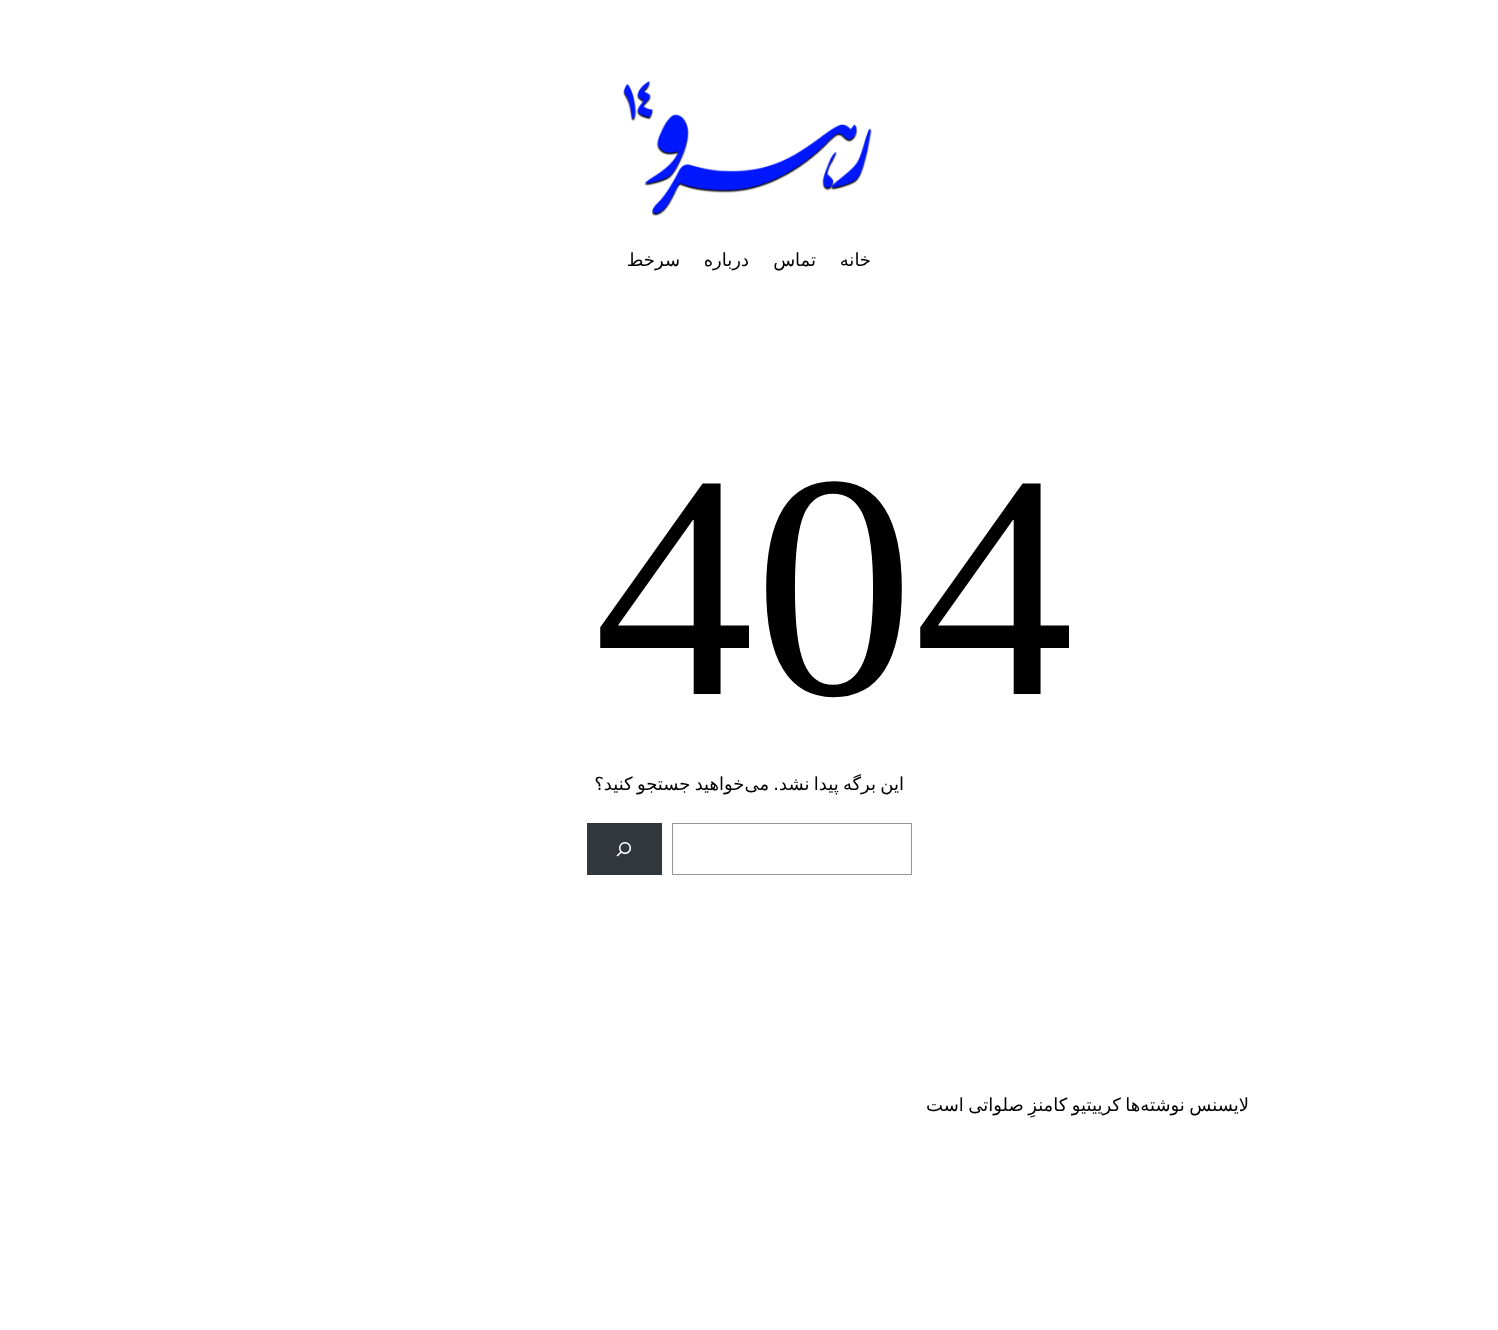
<svg xmlns="http://www.w3.org/2000/svg" width="1498" height="1330" viewBox="0 0 1498 1330">
  <rect width="100%" height="100%" fill="rgb(255,255,255)"/>
  <image x="623" y="81" width="249" height="135" href="pic1.png"/>
  <g font-family="DejaVu Sans" font-size="18" direction="rtl" fill="rgb(0,0,0)">
    <text x="871" y="266">خانه</text>
    <text x="816" y="266">تماس</text>
    <text x="749" y="266">درباره</text>
    <text x="680" y="266">سرخط</text>
  </g>
  <text x="594" y="694" font-family="Liberation Serif" font-size="320" fill="rgb(0,0,0)">404</text>
  <text x="904" y="790" word-spacing="-1.5" font-family="DejaVu Sans" font-size="18" direction="rtl" fill="rgb(0,0,0)">این برگه پیدا نشد. می‌خواهید جستجو کنید؟</text>
  <rect x="672.5" y="823.5" width="239" height="51" fill="none" stroke="rgb(148,148,148)"/>
  <rect x="587" y="823" width="75" height="52" fill="rgb(50,55,60)"/>
  <image x="616" y="842" width="16" height="15" href="pic2.png"/>
  <text x="1249" y="1111" word-spacing="-1.25" font-family="DejaVu Sans" font-size="18" direction="rtl" fill="rgb(0,0,0)">لایسنس نوشته‌ها کرییتیو کامنزِ صلواتی است</text>
</svg>
